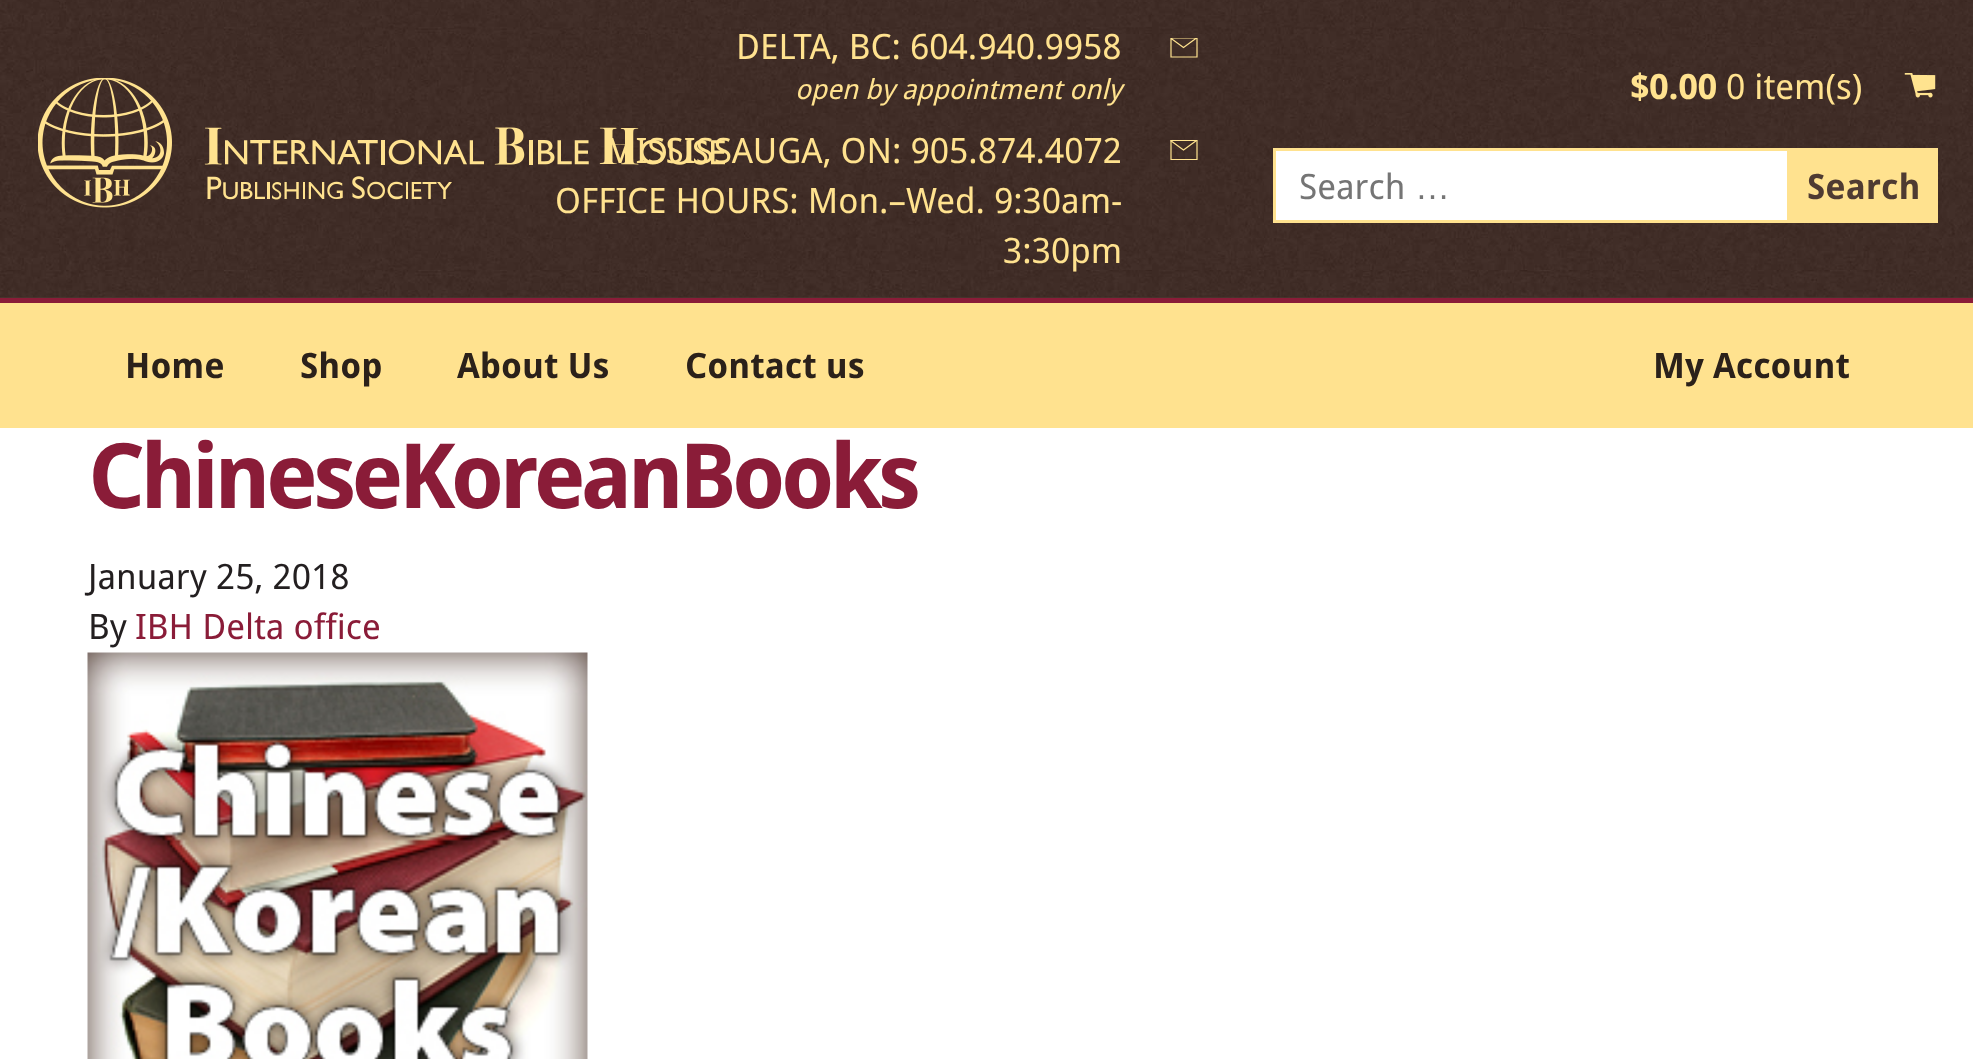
<svg xmlns="http://www.w3.org/2000/svg" width="1973" height="1059" viewBox="0 0 1973 1059">
  <defs>
    <clipPath id="clip1"><rect x="1170" y="38" width="28" height="20"/></clipPath>
    <clipPath id="clip2"><rect x="1170" y="140" width="28" height="20"/></clipPath>
  </defs>
  <rect width="100%" height="100%" fill="rgb(255,255,255)"/>
  <rect x="0" y="297" width="1973" height="1" fill="rgb(79,59,50)"/>
  <image x="0" y="0" width="1973" height="298" href="pic1.png"/>
  <image x="38" y="78" width="687" height="130" href="pic2.png"/>
  <g clip-path="url(#clip1)">
    <path d="M1171 38H1197V57H1171ZM1170.5 38L1183.5 47.5L1196.5 38" fill="none" stroke="rgb(255,227,143)" stroke-width="1.2"/>
  </g>
  <text x="736" y="59" font-family="Droid Sans" font-size="35" fill="rgb(255,226,143)">DELTA, BC: 604.940.9958</text>
  <text x="795" y="99" font-family="Droid Sans" font-size="27.5" font-style="italic" fill="rgb(255,226,143)">open by appointment only</text>
  <g clip-path="url(#clip2)">
    <path d="M1171 140.5H1197V159.5H1171Z" fill="none" stroke="rgb(255,227,143)" stroke-width="1.2"/>
  </g>
  <path d="M1170.5 140.5L1183.5 150L1196.5 140.5" fill="none" stroke="rgb(255,227,143)" stroke-width="1.2"/>
  <g font-family="Droid Sans" font-size="35" fill="rgb(255,226,143)">
    <text x="605" y="163">MISSISSAUGA, ON: 905.874.4072</text>
    <text x="555" y="213">OFFICE HOURS: Mon.–Wed. 9:30am-</text>
    <text x="1003" y="263">3:30pm</text>
  </g>
  <image x="1904" y="73" width="32" height="25" href="pic3.png"/>
  <text x="1630" y="99" font-family="Droid Sans" font-size="35" font-weight="bold" fill="rgb(255,226,143)">$0.00</text>
  <text x="1726" y="99" font-family="Droid Sans" font-size="35" fill="rgb(255,226,143)">0 item(s)</text>
  <rect x="1274.5" y="149.5" width="514" height="72" fill="rgb(255,255,255)" stroke="rgb(255,226,143)" stroke-width="3"/>
  <text x="1299" y="199" font-family="Droid Sans" font-size="35" fill="rgb(117,117,117)">Search</text>
  <text x="1415" y="199" font-family="Liberation Sans" font-size="35" fill="rgb(117,117,117)">…</text>
  <rect x="1790" y="148" width="148" height="75" fill="rgb(255,226,143)"/>
  <text x="1807" y="199" font-family="Droid Sans" font-size="35" font-weight="bold" fill="rgb(79,59,50)">Search</text>
  <rect x="0" y="303" width="1973" height="125" fill="rgb(255,226,143)"/>
  <rect x="0" y="298" width="1973" height="5" fill="rgb(138,28,56)"/>
  <g font-family="Droid Sans" font-size="35" font-weight="bold" fill="rgb(43,33,26)">
    <text x="125" y="378">Home</text>
    <text x="300" y="378">Shop</text>
    <text x="457" y="378">About Us</text>
    <text x="685" y="378">Contact us</text>
    <text x="1653" y="378">My Account</text>
  </g>
  <text x="88" y="508" font-family="Droid Sans" font-size="90" font-weight="bold" letter-spacing="-5" fill="rgb(138,28,56)">ChineseKoreanBooks</text>
  <g font-family="Droid Sans" font-size="35" fill="rgb(35,31,32)">
    <text>
      <tspan x="88" y="589">January 25, 2018</tspan>
      <tspan x="88" y="639">By</tspan>
    </text>
  </g>
  <text x="135" y="639" font-family="Droid Sans" font-size="35" fill="rgb(138,28,56)">IBH Delta office</text>
  <image x="87" y="652" width="501" height="407" href="pic4.png"/>
</svg>
